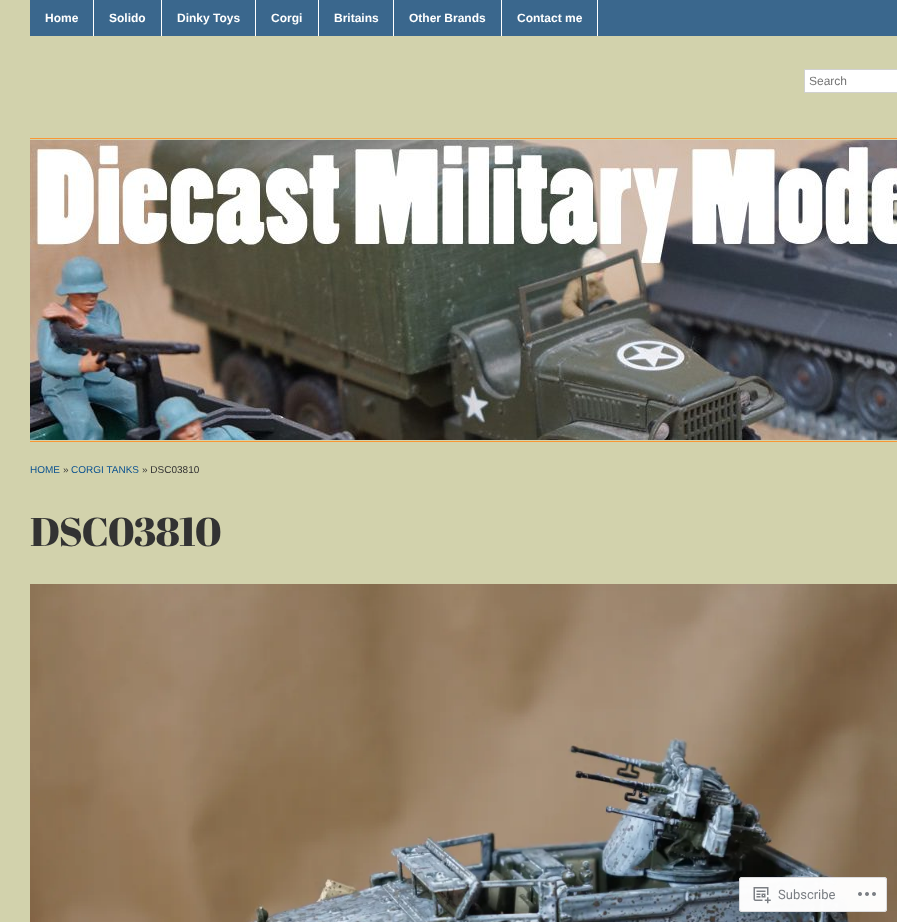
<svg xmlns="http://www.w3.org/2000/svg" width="897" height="922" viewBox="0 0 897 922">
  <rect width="100%" height="100%" fill="rgb(210,210,172)"/>
  <rect x="30" y="0" width="867" height="36" fill="rgb(58,103,141)"/>
  <rect x="93" y="0" width="1" height="36" fill="rgb(255,255,255)"/>
  <text x="45" y="22" font-family="Liberation Sans" font-size="12" font-weight="bold" fill="rgb(255,255,255)">Home</text>
  <rect x="161" y="0" width="1" height="36" fill="rgb(255,255,255)"/>
  <text x="109" y="22" font-family="Liberation Sans" font-size="12" font-weight="bold" fill="rgb(255,255,255)">Solido</text>
  <rect x="255" y="0" width="1" height="36" fill="rgb(255,255,255)"/>
  <text x="177" y="22" font-family="Liberation Sans" font-size="12" font-weight="bold" fill="rgb(255,255,255)">Dinky Toys</text>
  <rect x="318" y="0" width="1" height="36" fill="rgb(255,255,255)"/>
  <text x="271" y="22" font-family="Liberation Sans" font-size="12" font-weight="bold" fill="rgb(255,255,255)">Corgi</text>
  <rect x="393" y="0" width="1" height="36" fill="rgb(255,255,255)"/>
  <text x="334" y="22" font-family="Liberation Sans" font-size="12" font-weight="bold" fill="rgb(255,255,255)">Britains</text>
  <rect x="501" y="0" width="1" height="36" fill="rgb(255,255,255)"/>
  <text x="409" y="22" font-family="Liberation Sans" font-size="12" font-weight="bold" fill="rgb(255,255,255)">Other Brands</text>
  <rect x="597" y="0" width="1" height="36" fill="rgb(255,255,255)"/>
  <text x="517" y="22" font-family="Liberation Sans" font-size="12" font-weight="bold" fill="rgb(255,255,255)">Contact me</text>
  <rect x="804.5" y="69.5" width="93" height="23" fill="rgb(255,255,255)" stroke="rgb(209,209,209)"/>
  <text x="809" y="85" font-family="Arimo" font-size="12" fill="rgb(117,117,117)">Search</text>
  <rect x="30" y="138" width="867" height="1" fill="rgb(249,151,52)"/>
  <rect x="30" y="441" width="867" height="1" fill="rgb(249,151,52)"/>
  <image x="30" y="140" width="867" height="300" href="pic1.png"/>
  <text x="30" y="473" font-family="Liberation Sans" font-size="10" fill="rgb(12,83,144)">HOME</text>
  <text x="63" y="473" font-family="Liberation Sans" font-size="10" fill="rgb(51,51,51)">»</text>
  <text x="71" y="473" font-family="Liberation Sans" font-size="10" fill="rgb(12,83,144)">CORGI TANKS</text>
  <text x="142" y="473" font-family="Liberation Sans" font-size="10" fill="rgb(51,51,51)">» DSC03810</text>
  <text x="30" y="546" font-family="Abril Fatface" font-size="40" letter-spacing="-1" fill="rgb(51,51,51)">DSC03810</text>
  <image x="30" y="584" width="867" height="338" href="pic2.png"/>
  <rect x="739" y="877" width="148" height="35" rx="3" fill="rgba(255,255,255,0.98)"/>
  <rect x="739.5" y="877.5" width="147" height="34" rx="2.5" fill="none" stroke="rgba(220,220,222,0.98)"/>
  <image x="753" y="887" width="18" height="17" href="pic3.png"/>
  <text x="778" y="899" font-family="Roboto" font-size="13" fill="rgb(123,127,132)">Subscribe</text>
  <image x="858" y="892" width="18" height="4" href="pic4.png"/>
</svg>
